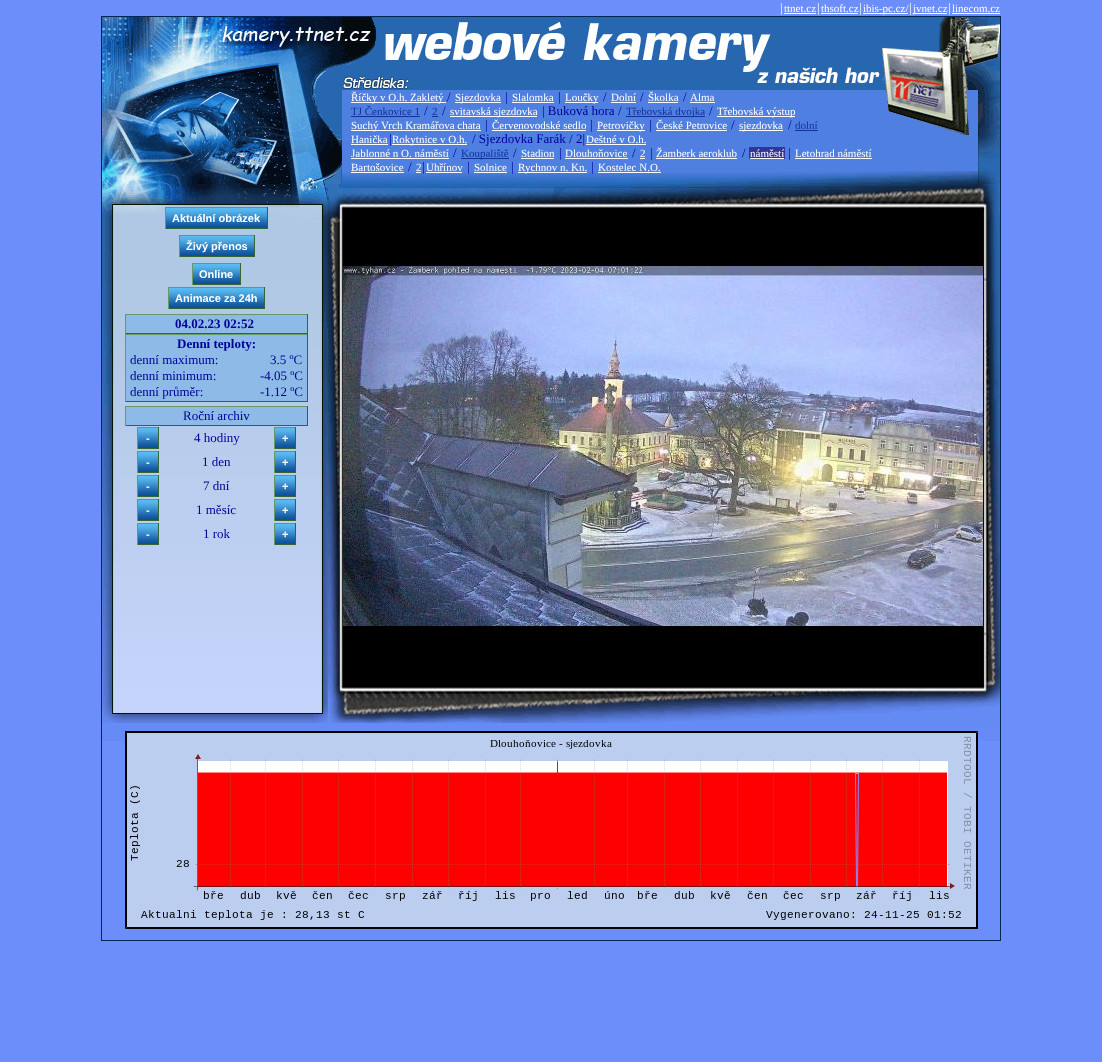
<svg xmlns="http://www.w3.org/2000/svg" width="1102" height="1062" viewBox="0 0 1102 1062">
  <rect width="100%" height="100%" fill="rgb(107,142,251)"/>
  <text x="780" y="12" font-family="Liberation Serif" font-size="13" fill="rgb(255,255,255)">|</text>
  <text x="784" y="12" font-family="Liberation Serif" font-size="11" fill="rgb(255,255,255)">ttnet.cz</text>
  <rect x="784" y="13" width="32" height="1" fill="rgb(255,255,255)"/>
  <text x="817" y="12" font-family="Liberation Serif" font-size="13" fill="rgb(255,255,255)">|</text>
  <text x="821" y="12" font-family="Liberation Serif" font-size="11" fill="rgb(255,255,255)">thsoft.cz</text>
  <rect x="821" y="13" width="37" height="1" fill="rgb(255,255,255)"/>
  <text x="859" y="12" font-family="Liberation Serif" font-size="13" fill="rgb(255,255,255)">|</text>
  <rect x="863" y="13" width="45" height="1" fill="rgb(255,255,255)"/>
  <text x="863" y="12" font-family="Liberation Serif" font-size="11" fill="rgb(255,255,255)">ibis-pc.cz/</text>
  <text x="909" y="12" font-family="Liberation Serif" font-size="13" fill="rgb(255,255,255)">|</text>
  <rect x="913" y="13" width="34" height="1" fill="rgb(255,255,255)"/>
  <text x="913" y="12" font-family="Liberation Serif" font-size="11" fill="rgb(255,255,255)">jvnet.cz</text>
  <text x="948" y="12" font-family="Liberation Serif" font-size="13" fill="rgb(255,255,255)">|</text>
  <text x="952" y="12" font-family="Liberation Serif" font-size="11" fill="rgb(255,255,255)">linecom.cz</text>
  <rect x="952" y="13" width="48" height="1" fill="rgb(255,255,255)"/>
  <rect x="101.5" y="16.5" width="899" height="924" fill="none" stroke="rgb(4,38,82)"/>
  <image x="102" y="17" width="898" height="167" href="pic1.png"/>
  <rect x="351" y="102" width="95" height="1" fill="rgb(255,255,255)"/>
  <text x="351" y="101" font-family="Liberation Serif" font-size="11" fill="rgb(255,255,255)">Říčky v O.h. Zakletý</text>
  <text x="447" y="101" font-family="Liberation Serif" font-size="13" fill="rgb(0,0,153)">/</text>
  <rect x="455" y="102" width="46" height="1" fill="rgb(255,255,255)"/>
  <text x="455" y="101" font-family="Liberation Serif" font-size="11" fill="rgb(255,255,255)">Sjezdovka</text>
  <text x="505" y="101" font-family="Liberation Serif" font-size="13" fill="rgb(0,0,153)">|</text>
  <text x="512" y="101" font-family="Liberation Serif" font-size="11" fill="rgb(255,255,255)">Slalomka</text>
  <rect x="512" y="102" width="42" height="1" fill="rgb(255,255,255)"/>
  <text x="558" y="101" font-family="Liberation Serif" font-size="13" fill="rgb(0,0,153)">|</text>
  <rect x="565" y="102" width="33" height="1" fill="rgb(255,255,255)"/>
  <text x="565" y="101" font-family="Liberation Serif" font-size="11" fill="rgb(255,255,255)">Loučky</text>
  <text x="603" y="101" font-family="Liberation Serif" font-size="13" fill="rgb(0,0,153)">/</text>
  <text x="611" y="101" font-family="Liberation Serif" font-size="11" fill="rgb(255,255,255)">Dolní</text>
  <rect x="611" y="102" width="25" height="1" fill="rgb(255,255,255)"/>
  <text x="640" y="101" font-family="Liberation Serif" font-size="13" fill="rgb(0,0,153)">/</text>
  <text x="648" y="101" font-family="Liberation Serif" font-size="11" fill="rgb(255,255,255)">Školka</text>
  <rect x="648" y="102" width="30" height="1" fill="rgb(255,255,255)"/>
  <text x="683" y="101" font-family="Liberation Serif" font-size="13" fill="rgb(0,0,153)">/</text>
  <text x="690" y="101" font-family="Liberation Serif" font-size="11" fill="rgb(255,255,255)">Alma</text>
  <rect x="690" y="102" width="25" height="1" fill="rgb(255,255,255)"/>
  <text x="351" y="115" font-family="Liberation Serif" font-size="11" fill="rgb(17,51,153)">TJ Čenkovice 1</text>
  <rect x="351" y="116" width="69" height="1" fill="rgb(17,51,153)"/>
  <text x="424" y="115" font-family="Liberation Serif" font-size="13" fill="rgb(0,0,153)">/</text>
  <text x="432" y="115" font-family="Liberation Serif" font-size="11" fill="rgb(17,51,153)">2</text>
  <rect x="432" y="116" width="6" height="1" fill="rgb(17,51,153)"/>
  <text x="442" y="115" font-family="Liberation Serif" font-size="13" fill="rgb(0,0,153)">/</text>
  <rect x="450" y="116" width="87" height="1" fill="rgb(255,255,255)"/>
  <text x="450" y="115" font-family="Liberation Serif" font-size="11" fill="rgb(255,255,255)">svitavská sjezdovka</text>
  <text x="542" y="115" font-family="Liberation Serif" font-size="13" fill="rgb(0,0,153)">| Buková hora /</text>
  <rect x="626" y="116" width="79" height="1" fill="rgb(17,51,153)"/>
  <text x="626" y="115" font-family="Liberation Serif" font-size="11" fill="rgb(17,51,153)">Třebovská dvojka</text>
  <text x="709" y="115" font-family="Liberation Serif" font-size="13" fill="rgb(0,0,153)">/</text>
  <rect x="717" y="116" width="78" height="1" fill="rgb(255,255,255)"/>
  <text x="717" y="115" font-family="Liberation Serif" font-size="11" fill="rgb(255,255,255)">Třebovská výstup</text>
  <rect x="351" y="130" width="130" height="1" fill="rgb(255,255,255)"/>
  <text x="351" y="129" font-family="Liberation Serif" font-size="11" fill="rgb(255,255,255)">Suchý Vrch Kramářova chata</text>
  <text x="485" y="129" font-family="Liberation Serif" font-size="13" fill="rgb(0,0,153)">|</text>
  <text x="492" y="129" font-family="Liberation Serif" font-size="11" fill="rgb(255,255,255)">Červenovodské sedlo</text>
  <rect x="492" y="130" width="94" height="1" fill="rgb(255,255,255)"/>
  <text x="590" y="129" font-family="Liberation Serif" font-size="13" fill="rgb(0,0,153)">|</text>
  <rect x="597" y="130" width="48" height="1" fill="rgb(255,255,255)"/>
  <text x="597" y="129" font-family="Liberation Serif" font-size="11" fill="rgb(255,255,255)">Petrovičky</text>
  <text x="649" y="129" font-family="Liberation Serif" font-size="13" fill="rgb(0,0,153)">|</text>
  <text x="656" y="129" font-family="Liberation Serif" font-size="11" fill="rgb(255,255,255)">České Petrovice</text>
  <rect x="656" y="130" width="71" height="1" fill="rgb(255,255,255)"/>
  <text x="731" y="129" font-family="Liberation Serif" font-size="13" fill="rgb(0,0,153)">/</text>
  <rect x="739" y="130" width="44" height="1" fill="rgb(255,255,255)"/>
  <text x="739" y="129" font-family="Liberation Serif" font-size="11" fill="rgb(255,255,255)">sjezdovka</text>
  <text x="788" y="129" font-family="Liberation Serif" font-size="13" fill="rgb(0,0,153)">/</text>
  <text x="795" y="129" font-family="Liberation Serif" font-size="11" fill="rgb(17,51,153)">dolní</text>
  <rect x="795" y="130" width="23" height="1" fill="rgb(17,51,153)"/>
  <text x="351" y="143" font-family="Liberation Serif" font-size="11" fill="rgb(255,255,255)">Hanička</text>
  <rect x="351" y="144" width="37" height="1" fill="rgb(255,255,255)"/>
  <text x="389" y="143" font-family="Liberation Serif" font-size="13" fill="rgb(0,0,153)">|</text>
  <rect x="392" y="144" width="75" height="1" fill="rgb(255,255,255)"/>
  <text x="392" y="143" font-family="Liberation Serif" font-size="11" fill="rgb(255,255,255)">Rokytnice v O.h.</text>
  <text x="472" y="143" font-family="Liberation Serif" font-size="13" fill="rgb(0,0,153)">/ Sjezdovka Farák / 2|</text>
  <text x="586" y="143" font-family="Liberation Serif" font-size="11" fill="rgb(255,255,255)">Deštné v O.h.</text>
  <rect x="586" y="144" width="60" height="1" fill="rgb(255,255,255)"/>
  <text x="351" y="157" font-family="Liberation Serif" font-size="11" fill="rgb(255,255,255)">Jablonné n O. náměstí</text>
  <rect x="351" y="158" width="98" height="1" fill="rgb(255,255,255)"/>
  <text x="453" y="157" font-family="Liberation Serif" font-size="13" fill="rgb(0,0,153)">/</text>
  <rect x="461" y="158" width="48" height="1" fill="rgb(17,51,153)"/>
  <text x="461" y="157" font-family="Liberation Serif" font-size="11" fill="rgb(17,51,153)">Koupaliště</text>
  <text x="513" y="157" font-family="Liberation Serif" font-size="13" fill="rgb(0,0,153)">/</text>
  <text x="521" y="157" font-family="Liberation Serif" font-size="11" fill="rgb(255,255,255)">Stadion</text>
  <rect x="521" y="158" width="33" height="1" fill="rgb(255,255,255)"/>
  <text x="559" y="157" font-family="Liberation Serif" font-size="13" fill="rgb(0,0,153)">|</text>
  <text x="565" y="157" font-family="Liberation Serif" font-size="11" fill="rgb(255,255,255)">Dlouhoňovice</text>
  <rect x="565" y="158" width="63" height="1" fill="rgb(255,255,255)"/>
  <text x="632" y="157" font-family="Liberation Serif" font-size="13" fill="rgb(0,0,153)">/</text>
  <text x="640" y="157" font-family="Liberation Serif" font-size="11" fill="rgb(255,255,255)">2</text>
  <rect x="640" y="158" width="5" height="1" fill="rgb(255,255,255)"/>
  <text x="650" y="157" font-family="Liberation Serif" font-size="13" fill="rgb(0,0,153)">|</text>
  <text x="656" y="157" font-family="Liberation Serif" font-size="11" fill="rgb(255,255,255)">Žamberk aeroklub</text>
  <rect x="656" y="158" width="81" height="1" fill="rgb(255,255,255)"/>
  <text x="742" y="157" font-family="Liberation Serif" font-size="13" fill="rgb(0,0,153)">/</text>
  <rect x="749" y="147" width="36" height="12" fill="rgb(51,51,153)"/>
  <text x="750" y="157" font-family="Liberation Serif" font-size="11" fill="rgb(255,255,255)">náměstí</text>
  <rect x="750" y="158" width="34" height="1" fill="rgb(255,255,255)"/>
  <text x="788" y="157" font-family="Liberation Serif" font-size="13" fill="rgb(0,0,153)">|</text>
  <text x="795" y="157" font-family="Liberation Serif" font-size="11" fill="rgb(255,255,255)">Letohrad náměstí</text>
  <rect x="795" y="158" width="77" height="1" fill="rgb(255,255,255)"/>
  <text x="351" y="171" font-family="Liberation Serif" font-size="11" fill="rgb(255,255,255)">Bartošovice</text>
  <rect x="351" y="172" width="53" height="1" fill="rgb(255,255,255)"/>
  <text x="408" y="171" font-family="Liberation Serif" font-size="13" fill="rgb(0,0,153)">/</text>
  <text x="416" y="171" font-family="Liberation Serif" font-size="11" fill="rgb(255,255,255)">2</text>
  <rect x="416" y="172" width="5" height="1" fill="rgb(255,255,255)"/>
  <text x="422" y="171" font-family="Liberation Serif" font-size="13" fill="rgb(0,0,153)">|</text>
  <text x="426" y="171" font-family="Liberation Serif" font-size="11" fill="rgb(255,255,255)">Uhřínov</text>
  <rect x="426" y="172" width="36" height="1" fill="rgb(255,255,255)"/>
  <text x="467" y="171" font-family="Liberation Serif" font-size="13" fill="rgb(0,0,153)">|</text>
  <text x="474" y="171" font-family="Liberation Serif" font-size="11" fill="rgb(255,255,255)">Solnice</text>
  <rect x="474" y="172" width="33" height="1" fill="rgb(255,255,255)"/>
  <text x="511" y="171" font-family="Liberation Serif" font-size="13" fill="rgb(0,0,153)">|</text>
  <rect x="518" y="172" width="69" height="1" fill="rgb(255,255,255)"/>
  <text x="518" y="171" font-family="Liberation Serif" font-size="11" fill="rgb(255,255,255)">Rychnov n. Kn.</text>
  <text x="591" y="171" font-family="Liberation Serif" font-size="13" fill="rgb(0,0,153)">|</text>
  <text x="598" y="171" font-family="Liberation Serif" font-size="11" fill="rgb(255,255,255)">Kostelec N.O.</text>
  <rect x="598" y="172" width="63" height="1" fill="rgb(255,255,255)"/>
  <image x="102" y="184" width="226" height="539" href="pic2.png"/>
  <image x="166" y="208" width="101" height="20" href="pic3.png"/>
  <rect x="165" y="207" width="103" height="1" fill="rgb(102,153,102)"/>
  <rect x="267" y="207" width="1" height="22" fill="rgb(51,102,51)"/>
  <rect x="165" y="228" width="103" height="1" fill="rgb(51,102,51)"/>
  <rect x="165" y="207" width="1" height="22" fill="rgb(102,153,102)"/>
  <text x="172" y="222" font-family="Liberation Sans" font-size="11" font-weight="bold" fill="rgb(255,255,255)">Aktuální obrázek</text>
  <image x="180" y="236" width="74" height="20" href="pic4.png"/>
  <rect x="179" y="235" width="76" height="1" fill="rgb(102,153,102)"/>
  <rect x="254" y="235" width="1" height="22" fill="rgb(51,102,51)"/>
  <rect x="179" y="256" width="76" height="1" fill="rgb(51,102,51)"/>
  <rect x="179" y="235" width="1" height="22" fill="rgb(102,153,102)"/>
  <text x="186" y="250" font-family="Liberation Sans" font-size="11" font-weight="bold" fill="rgb(255,255,255)">Živý přenos</text>
  <image x="193" y="264" width="47" height="20" href="pic5.png"/>
  <rect x="192" y="263" width="49" height="1" fill="rgb(102,153,102)"/>
  <rect x="240" y="263" width="1" height="22" fill="rgb(51,102,51)"/>
  <rect x="192" y="284" width="49" height="1" fill="rgb(51,102,51)"/>
  <rect x="192" y="263" width="1" height="22" fill="rgb(102,153,102)"/>
  <text x="199" y="278" font-family="Liberation Sans" font-size="11" font-weight="bold" fill="rgb(255,255,255)">Online</text>
  <image x="169" y="288" width="95" height="20" href="pic6.png"/>
  <rect x="168" y="287" width="97" height="1" fill="rgb(102,153,102)"/>
  <rect x="264" y="287" width="1" height="22" fill="rgb(51,102,51)"/>
  <rect x="168" y="308" width="97" height="1" fill="rgb(51,102,51)"/>
  <rect x="168" y="287" width="1" height="22" fill="rgb(102,153,102)"/>
  <text x="175" y="302" font-family="Liberation Sans" font-size="11" font-weight="bold" fill="rgb(255,255,255)">Animace za 24h</text>
  <rect x="126" y="315" width="181" height="18" fill="rgb(141,186,231)"/>
  <rect x="125" y="314" width="183" height="1" fill="rgb(102,153,102)"/>
  <rect x="307" y="314" width="1" height="20" fill="rgb(51,102,51)"/>
  <rect x="125" y="333" width="183" height="1" fill="rgb(51,102,51)"/>
  <rect x="125" y="314" width="1" height="20" fill="rgb(102,153,102)"/>
  <text x="175" y="328" font-family="Liberation Serif" font-size="13" font-weight="bold" fill="rgb(0,0,153)">04.02.23 02:52</text>
  <rect x="126" y="335" width="181" height="66" fill="rgb(141,186,231)"/>
  <rect x="125" y="334" width="183" height="1" fill="rgb(102,153,102)"/>
  <rect x="307" y="334" width="1" height="68" fill="rgb(51,102,51)"/>
  <rect x="125" y="401" width="183" height="1" fill="rgb(51,102,51)"/>
  <rect x="125" y="334" width="1" height="68" fill="rgb(102,153,102)"/>
  <text x="177" y="348" font-family="Liberation Serif" font-size="13" font-weight="bold" fill="rgb(0,0,153)">Denní teploty:</text>
  <g font-family="Liberation Serif" font-size="13" fill="rgb(0,0,153)">
    <text x="130" y="364">denní maximum:</text>
    <text x="270" y="364">3.5 ºC</text>
    <text x="130" y="380">denní minimum:</text>
    <text x="260" y="380">-4.05 ºC</text>
    <text x="130" y="396">denní průměr:</text>
    <text x="260" y="396">-1.12 ºC</text>
  </g>
  <rect x="126" y="407" width="181" height="18" fill="rgb(141,186,231)"/>
  <rect x="125" y="406" width="183" height="1" fill="rgb(102,153,102)"/>
  <rect x="307" y="406" width="1" height="20" fill="rgb(51,102,51)"/>
  <rect x="125" y="425" width="183" height="1" fill="rgb(51,102,51)"/>
  <rect x="125" y="406" width="1" height="20" fill="rgb(102,153,102)"/>
  <text x="183" y="420" font-family="Liberation Serif" font-size="13" fill="rgb(0,0,153)">Roční archiv</text>
  <image x="138" y="428" width="20" height="20" href="pic7.png"/>
  <rect x="137" y="427" width="22" height="1" fill="rgb(102,153,102)"/>
  <rect x="158" y="427" width="1" height="22" fill="rgb(51,102,51)"/>
  <rect x="137" y="448" width="22" height="1" fill="rgb(51,102,51)"/>
  <rect x="137" y="427" width="1" height="22" fill="rgb(102,153,102)"/>
  <text x="146" y="442" font-family="Liberation Sans" font-size="11" font-weight="bold" fill="rgb(255,255,255)">-</text>
  <text x="194" y="442" font-family="Liberation Serif" font-size="13" fill="rgb(0,0,153)">4 hodiny</text>
  <image x="275" y="428" width="20" height="20" href="pic7.png"/>
  <rect x="274" y="427" width="22" height="1" fill="rgb(102,153,102)"/>
  <rect x="295" y="427" width="1" height="22" fill="rgb(51,102,51)"/>
  <rect x="274" y="448" width="22" height="1" fill="rgb(51,102,51)"/>
  <rect x="274" y="427" width="1" height="22" fill="rgb(102,153,102)"/>
  <text x="282" y="442" font-family="Liberation Sans" font-size="11" font-weight="bold" fill="rgb(255,255,255)">+</text>
  <image x="138" y="452" width="20" height="20" href="pic7.png"/>
  <rect x="137" y="451" width="22" height="1" fill="rgb(102,153,102)"/>
  <rect x="158" y="451" width="1" height="22" fill="rgb(51,102,51)"/>
  <rect x="137" y="472" width="22" height="1" fill="rgb(51,102,51)"/>
  <rect x="137" y="451" width="1" height="22" fill="rgb(102,153,102)"/>
  <text x="146" y="466" font-family="Liberation Sans" font-size="11" font-weight="bold" fill="rgb(255,255,255)">-</text>
  <text x="202" y="466" font-family="Liberation Serif" font-size="13" fill="rgb(0,0,153)">1 den</text>
  <image x="275" y="452" width="20" height="20" href="pic7.png"/>
  <rect x="274" y="451" width="22" height="1" fill="rgb(102,153,102)"/>
  <rect x="295" y="451" width="1" height="22" fill="rgb(51,102,51)"/>
  <rect x="274" y="472" width="22" height="1" fill="rgb(51,102,51)"/>
  <rect x="274" y="451" width="1" height="22" fill="rgb(102,153,102)"/>
  <text x="282" y="466" font-family="Liberation Sans" font-size="11" font-weight="bold" fill="rgb(255,255,255)">+</text>
  <image x="138" y="476" width="20" height="20" href="pic7.png"/>
  <rect x="137" y="475" width="22" height="1" fill="rgb(102,153,102)"/>
  <rect x="158" y="475" width="1" height="22" fill="rgb(51,102,51)"/>
  <rect x="137" y="496" width="22" height="1" fill="rgb(51,102,51)"/>
  <rect x="137" y="475" width="1" height="22" fill="rgb(102,153,102)"/>
  <text x="146" y="490" font-family="Liberation Sans" font-size="11" font-weight="bold" fill="rgb(255,255,255)">-</text>
  <text x="203" y="490" font-family="Liberation Serif" font-size="13" fill="rgb(0,0,153)">7 dní</text>
  <image x="275" y="476" width="20" height="20" href="pic7.png"/>
  <rect x="274" y="475" width="22" height="1" fill="rgb(102,153,102)"/>
  <rect x="295" y="475" width="1" height="22" fill="rgb(51,102,51)"/>
  <rect x="274" y="496" width="22" height="1" fill="rgb(51,102,51)"/>
  <rect x="274" y="475" width="1" height="22" fill="rgb(102,153,102)"/>
  <text x="282" y="490" font-family="Liberation Sans" font-size="11" font-weight="bold" fill="rgb(255,255,255)">+</text>
  <image x="138" y="500" width="20" height="20" href="pic7.png"/>
  <rect x="137" y="499" width="22" height="1" fill="rgb(102,153,102)"/>
  <rect x="158" y="499" width="1" height="22" fill="rgb(51,102,51)"/>
  <rect x="137" y="520" width="22" height="1" fill="rgb(51,102,51)"/>
  <rect x="137" y="499" width="1" height="22" fill="rgb(102,153,102)"/>
  <text x="146" y="514" font-family="Liberation Sans" font-size="11" font-weight="bold" fill="rgb(255,255,255)">-</text>
  <text x="196" y="514" font-family="Liberation Serif" font-size="13" fill="rgb(0,0,153)">1 měsíc</text>
  <image x="275" y="500" width="20" height="20" href="pic7.png"/>
  <rect x="274" y="499" width="22" height="1" fill="rgb(102,153,102)"/>
  <rect x="295" y="499" width="1" height="22" fill="rgb(51,102,51)"/>
  <rect x="274" y="520" width="22" height="1" fill="rgb(51,102,51)"/>
  <rect x="274" y="499" width="1" height="22" fill="rgb(102,153,102)"/>
  <text x="282" y="514" font-family="Liberation Sans" font-size="11" font-weight="bold" fill="rgb(255,255,255)">+</text>
  <image x="138" y="524" width="20" height="20" href="pic7.png"/>
  <rect x="137" y="523" width="22" height="1" fill="rgb(102,153,102)"/>
  <rect x="158" y="523" width="1" height="22" fill="rgb(51,102,51)"/>
  <rect x="137" y="544" width="22" height="1" fill="rgb(51,102,51)"/>
  <rect x="137" y="523" width="1" height="22" fill="rgb(102,153,102)"/>
  <text x="146" y="538" font-family="Liberation Sans" font-size="11" font-weight="bold" fill="rgb(255,255,255)">-</text>
  <text x="203" y="538" font-family="Liberation Serif" font-size="13" fill="rgb(0,0,153)">1 rok</text>
  <image x="275" y="524" width="20" height="20" href="pic7.png"/>
  <rect x="274" y="523" width="22" height="1" fill="rgb(102,153,102)"/>
  <rect x="295" y="523" width="1" height="22" fill="rgb(51,102,51)"/>
  <rect x="274" y="544" width="22" height="1" fill="rgb(51,102,51)"/>
  <rect x="274" y="523" width="1" height="22" fill="rgb(102,153,102)"/>
  <text x="282" y="538" font-family="Liberation Sans" font-size="11" font-weight="bold" fill="rgb(255,255,255)">+</text>
  <image x="328" y="184" width="672" height="539" href="pic8.png"/>
  <image x="343" y="266" width="640" height="360" href="pic9.png"/>
  <rect x="102" y="723" width="898" height="18" fill="rgb(102,139,246)"/>
  <image x="125" y="731" width="853" height="198" href="pic10.png"/>
</svg>
